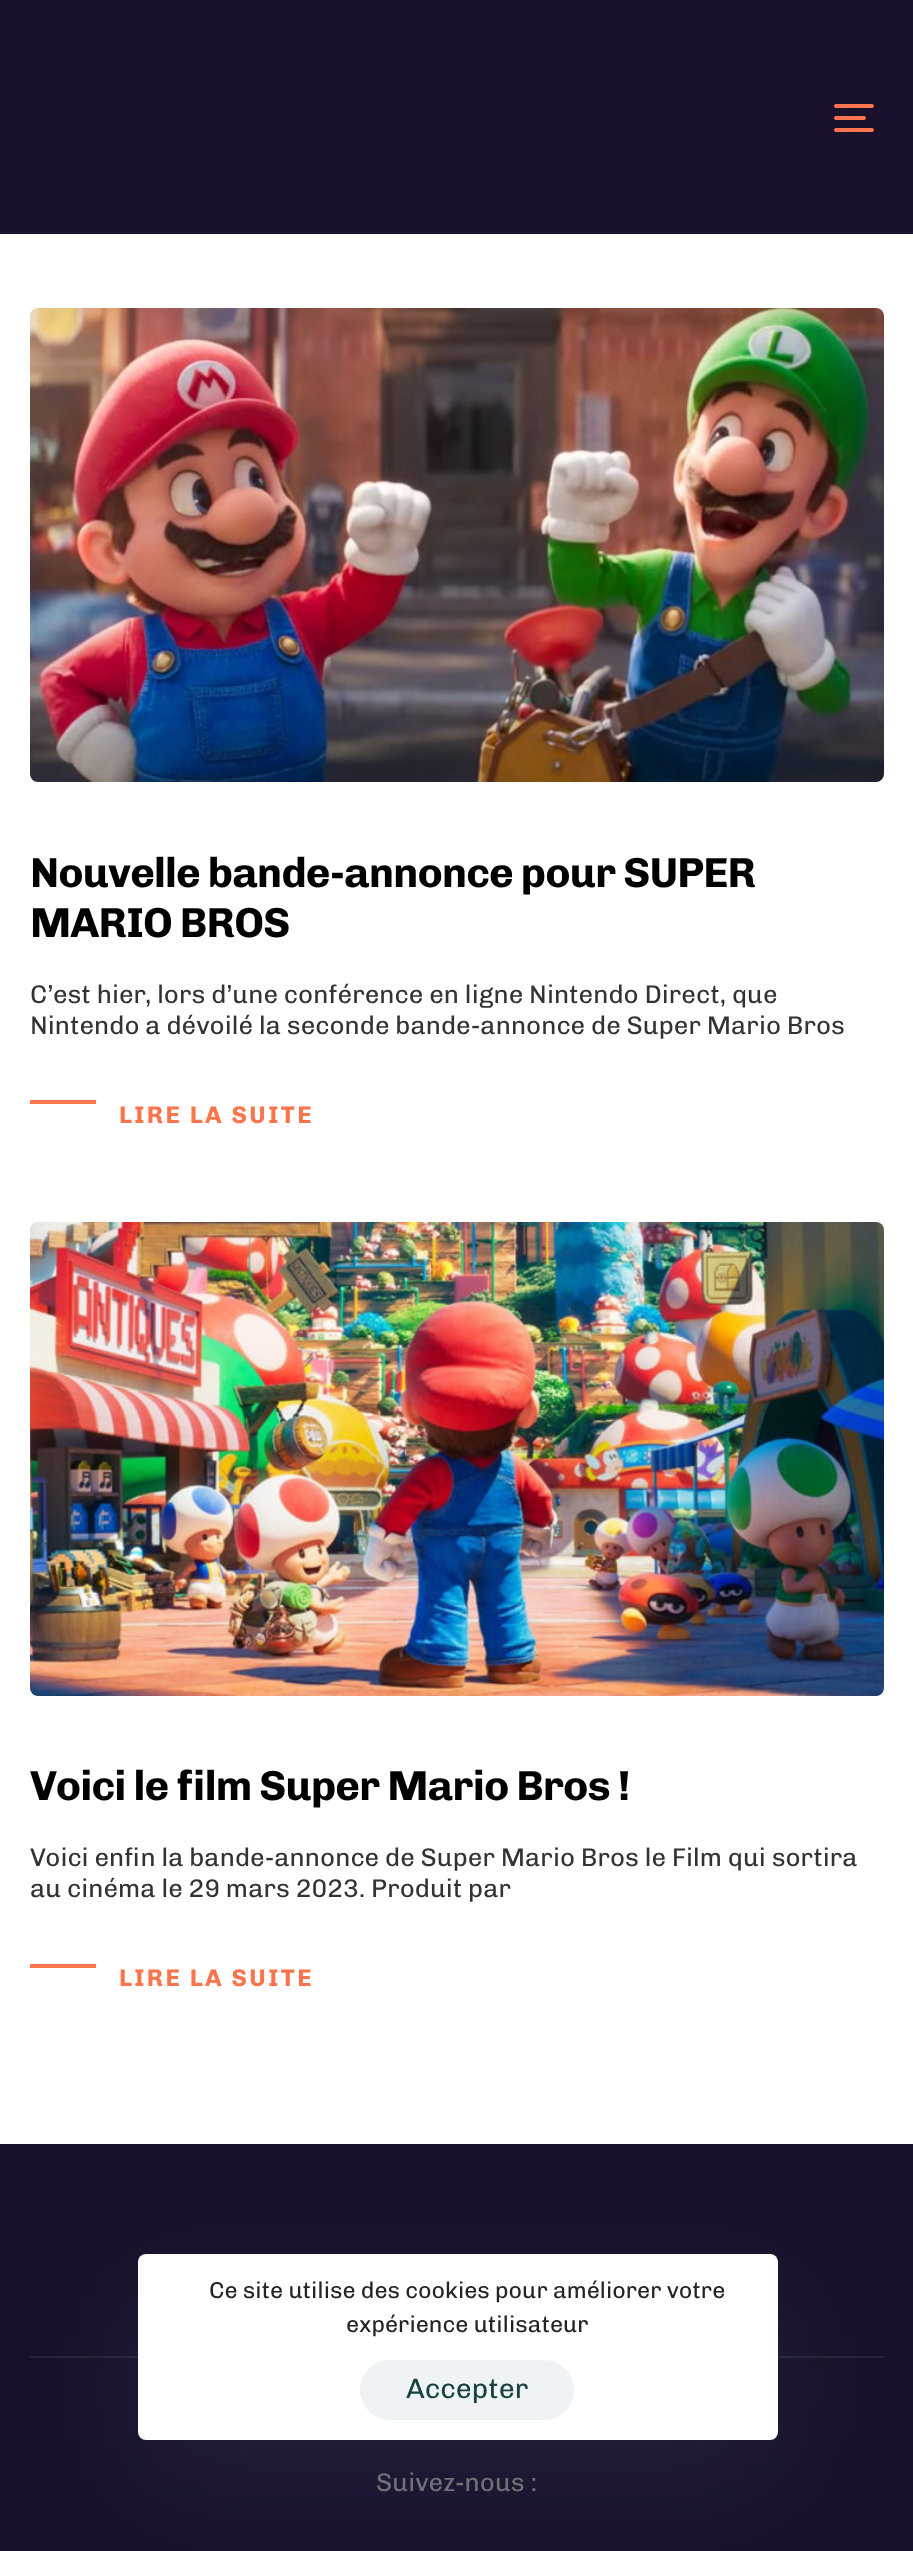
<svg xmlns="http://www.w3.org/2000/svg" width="913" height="2551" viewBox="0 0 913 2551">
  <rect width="100%" height="100%" fill="rgb(255,255,255)"/>
  <rect x="0" y="0" width="913" height="234" fill="rgb(26,17,44)"/>
  <rect x="834" y="104" width="40" height="4" rx="2" fill="rgb(250,117,75)"/>
  <rect x="834" y="116" width="32" height="4" rx="2" fill="rgb(250,117,75)"/>
  <rect x="834" y="128" width="40" height="4" rx="2" fill="rgb(250,117,75)"/>
  <image x="30" y="308" width="854" height="474" href="pic1.png"/>
  <g font-family="Chivo" font-size="42" font-weight="bold" letter-spacing="-0.85" fill="rgb(0,0,0)">
    <text>
      <tspan x="30" y="887">Nouvelle bande-annonce pour SUPER</tspan>
      <tspan x="30" y="937">MARIO BROS</tspan>
    </text>
  </g>
  <g font-family="Chivo" font-size="25.6" fill="rgb(51,51,51)">
    <text>
      <tspan x="30" y="1003">C’est hier, lors d’une conférence en ligne Nintendo Direct, que</tspan>
      <tspan x="30" y="1034">Nintendo a dévoilé la seconde bande-annonce de Super Mario Bros</tspan>
    </text>
  </g>
  <rect x="30" y="1100" width="66" height="4" fill="rgb(250,117,75)"/>
  <text x="119" y="1123" font-family="Chivo" font-size="24" font-weight="bold" letter-spacing="2.4" fill="rgb(250,117,75)">LIRE LA SUITE</text>
  <image x="30" y="1222" width="854" height="474" href="pic2.png"/>
  <text x="30" y="1800" font-family="Chivo" font-size="42" font-weight="bold" letter-spacing="-0.85" fill="rgb(0,0,0)">Voici le film Super Mario Bros !</text>
  <g font-family="Chivo" font-size="25.6" fill="rgb(51,51,51)">
    <text>
      <tspan x="30" y="1866">Voici enfin la bande-annonce de Super Mario Bros le Film qui sortira</tspan>
      <tspan x="30" y="1897">au cinéma le 29 mars 2023. Produit par</tspan>
    </text>
  </g>
  <rect x="30" y="1964" width="66" height="4" fill="rgb(250,117,75)"/>
  <text x="119" y="1986" font-family="Chivo" font-size="24" font-weight="bold" letter-spacing="2.4" fill="rgb(250,117,75)">LIRE LA SUITE</text>
  <rect x="0" y="2144" width="913" height="407" fill="rgb(26,17,44)"/>
  <rect x="30" y="2356" width="854" height="2" fill="rgb(42,34,59)"/>
  <text x="376" y="2491" font-family="Chivo" font-size="25.6" fill="rgb(115,115,115)">Suivez-nous :</text>
  <rect x="138" y="2294" width="640" height="186" rx="8" fill="rgba(92,107,149,0.15)" filter="blur(60px)"/>
  <rect x="138" y="2254" width="640" height="186" rx="8" fill="rgb(255,255,255)"/>
  <g font-family="Chivo" font-size="23" fill="rgb(36,36,36)">
    <text x="209" y="2298">Ce site utilise des cookies pour améliorer votre</text>
    <text x="346" y="2332">expérience utilisateur</text>
  </g>
  <rect x="360" y="2360" width="214" height="60" rx="30" fill="rgb(239,243,245)"/>
  <text x="406" y="2398" font-family="Chivo" font-size="28" fill="rgb(24,67,65)">Accepter</text>
</svg>
